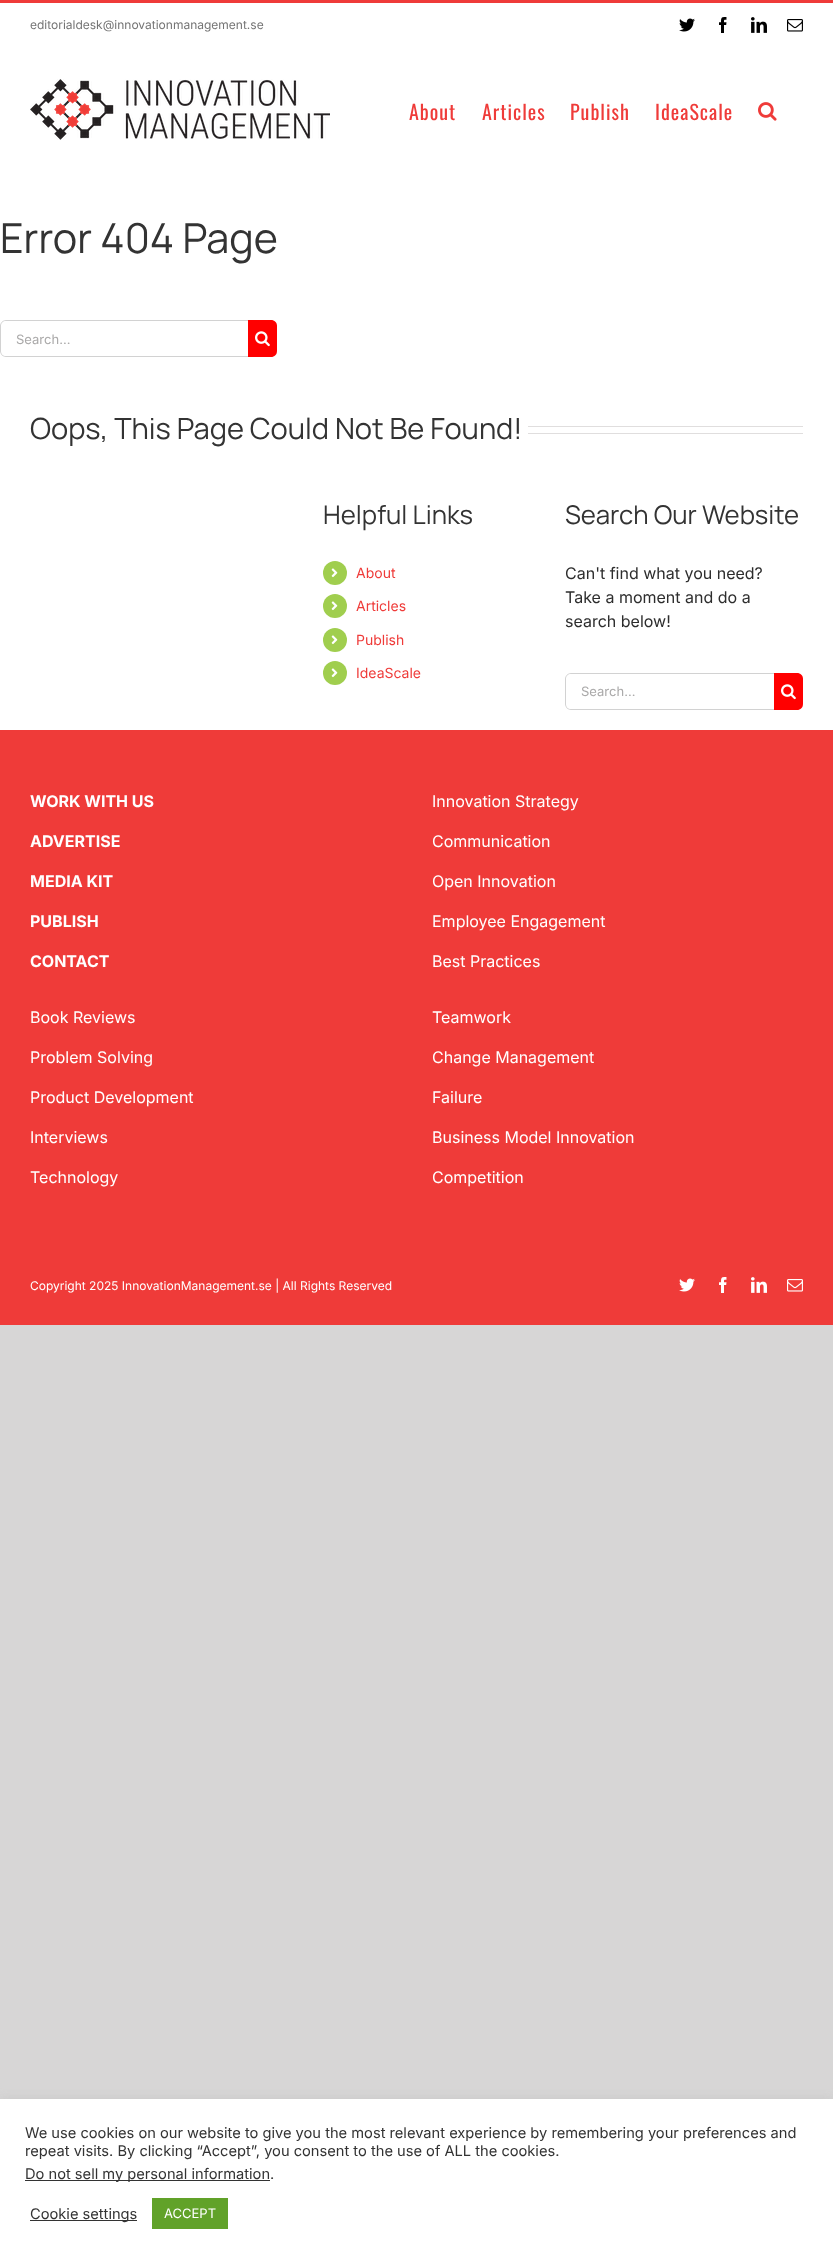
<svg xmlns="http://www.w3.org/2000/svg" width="833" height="2259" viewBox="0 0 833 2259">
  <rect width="100%" height="100%" fill="rgb(215,214,214)"/>
  <rect x="0" y="3" width="833" height="727" fill="rgb(255,255,255)"/>
  <rect x="0" y="0" width="833" height="3" fill="rgb(239,59,57)"/>
  <text x="30" y="29" font-family="Inter" font-size="12" fill="rgb(116,116,116)">editorialdesk@innovationmanagement.se</text>
  <image x="679" y="18" width="16" height="14" href="pic1.png"/>
  <image x="719" y="17" width="8" height="16" href="pic2.png"/>
  <image x="751" y="17" width="16" height="16" href="pic3.png"/>
  <image x="787" y="19" width="16" height="13" href="pic4.png"/>
  <image x="30" y="79" width="300" height="61" href="pic5.png"/>
  <g font-family="Oswald" font-size="20" letter-spacing="1" fill="rgb(239,59,57)">
    <text x="409" y="120">About</text>
    <text x="482" y="120">Articles</text>
    <text x="570" y="120">Publish</text>
    <text x="655" y="120">IdeaScale</text>
  </g>
  <image x="758" y="102" width="19" height="19" href="pic6.png"/>
  <text x="0" y="253" font-family="Manrope" font-size="41.25" fill="rgb(51,51,51)">Error 404 Page</text>
  <path d="M6 320H248V357H6C3 357 0 354 0 351V326C0 323 3 320 6 320ZM6 321H248V356H6C3 356 1 354 1 351V326C1 323 3 321 6 321Z" fill="rgb(210,210,210)" fill-rule="evenodd"/>
  <text x="16" y="344" font-family="Inter" font-size="13" fill="rgb(170,169,169)">Search...</text>
  <path d="M248 320H271C274.5 320 277 322.5 277 326V351C277 354.5 274.5 357 271 357H248Z" fill="rgb(255,0,0)"/>
  <image x="255" y="331" width="15" height="16" href="pic7.png"/>
  <text x="30" y="439" font-family="Manrope" font-size="29.1" fill="rgb(51,51,51)">Oops, This Page Could Not Be Found!</text>
  <rect x="528" y="426" width="275" height="1" fill="rgb(224,222,222)"/>
  <rect x="528" y="433" width="275" height="1" fill="rgb(224,222,222)"/>
  <text x="323" y="524" font-family="Manrope" font-size="25.75" fill="rgb(51,51,51)">Helpful Links</text>
  <circle cx="335" cy="573" r="12" fill="rgb(160,206,78)"/>
  <image x="331" y="568" width="7" height="10" href="pic8.png"/>
  <text x="356" y="578" font-family="Inter" font-size="14" fill="rgb(239,59,57)">About</text>
  <circle cx="335" cy="606" r="12" fill="rgb(160,206,78)"/>
  <image x="331" y="601" width="7" height="10" href="pic8.png"/>
  <text x="356" y="611" font-family="Inter" font-size="14" fill="rgb(239,59,57)">Articles</text>
  <circle cx="335" cy="640" r="12" fill="rgb(160,206,78)"/>
  <image x="331" y="635" width="7" height="10" href="pic8.png"/>
  <text x="356" y="645" font-family="Inter" font-size="14" fill="rgb(239,59,57)">Publish</text>
  <circle cx="335" cy="673" r="12" fill="rgb(160,206,78)"/>
  <image x="331" y="668" width="7" height="10" href="pic8.png"/>
  <text x="356" y="678" font-family="Inter" font-size="14" fill="rgb(239,59,57)">IdeaScale</text>
  <text x="565" y="524" font-family="Manrope" font-size="25.75" fill="rgb(51,51,51)">Search Our Website</text>
  <g font-family="Inter" font-size="16" fill="rgb(45,45,45)">
    <text>
      <tspan x="565" y="579">Can't find what you need?</tspan>
      <tspan x="565" y="603">Take a moment and do a</tspan>
      <tspan x="565" y="627">search below!</tspan>
    </text>
  </g>
  <path d="M571 673H774V710H571C568 710 565 707 565 704V679C565 676 568 673 571 673ZM571 674H774V709H571C568 709 566 707 566 704V679C566 676 568 674 571 674Z" fill="rgb(210,210,210)" fill-rule="evenodd"/>
  <text x="581" y="696" font-family="Inter" font-size="13" fill="rgb(170,169,169)">Search...</text>
  <path d="M774 673H797C800.5 673 803 675.5 803 679V704C803 707.5 800.5 710 797 710H774Z" fill="rgb(255,0,0)"/>
  <image x="781" y="684" width="15" height="16" href="pic7.png"/>
  <rect x="0" y="730" width="833" height="595" fill="rgb(239,59,57)"/>
  <g font-family="Inter" font-size="16" font-weight="bold" fill="rgb(255,255,255)">
    <text x="30" y="807">WORK WITH US</text>
    <text x="30" y="847">ADVERTISE</text>
    <text x="30" y="887">MEDIA KIT</text>
    <text x="30" y="927">PUBLISH</text>
    <text x="30" y="967">CONTACT</text>
  </g>
  <g font-family="Inter" font-size="16" fill="rgb(255,255,255)">
    <text x="432" y="807">Innovation Strategy</text>
    <text x="432" y="847">Communication</text>
    <text x="432" y="887">Open Innovation</text>
    <text x="432" y="927">Employee Engagement</text>
    <text x="432" y="967">Best Practices</text>
    <text x="30" y="1023">Book Reviews</text>
    <text x="30" y="1063">Problem Solving</text>
    <text x="30" y="1103">Product Development</text>
    <text x="30" y="1143">Interviews</text>
    <text x="30" y="1183">Technology</text>
    <text x="432" y="1023">Teamwork</text>
    <text x="432" y="1063">Change Management</text>
    <text x="432" y="1103">Failure</text>
    <text x="432" y="1143">Business Model Innovation</text>
    <text x="432" y="1183">Competition</text>
  </g>
  <text x="30" y="1290" font-family="Inter" font-size="12" fill="rgb(255,255,255)">Copyright 2025 InnovationManagement.se | All Rights Reserved</text>
  <image x="679" y="1278" width="16" height="14" href="pic9.png"/>
  <image x="719" y="1277" width="8" height="16" href="pic10.png"/>
  <image x="751" y="1277" width="16" height="16" href="pic11.png"/>
  <image x="787" y="1279" width="16" height="13" href="pic12.png"/>
  <rect x="0" y="2098" width="833" height="160" fill="rgba(172,171,171,0.3)" filter="blur(5px)"/>
  <rect x="0" y="2099" width="833" height="160" fill="rgb(255,255,255)"/>
  <g font-family="Inter" font-size="14.67" fill="rgb(51,51,51)">
    <text>
      <tspan x="25" y="2138">We use cookies on our website to give you the most relevant experience by remembering your preferences and</tspan>
      <tspan x="25" y="2156">repeat visits. By clicking “Accept”, you consent to the use of ALL the cookies.</tspan>
    </text>
  </g>
  <rect x="25" y="2180" width="245" height="1" fill="rgb(51,51,51)"/>
  <text x="25" y="2179" font-family="Inter" font-size="14.67" fill="rgb(51,51,51)">Do not sell my personal information.</text>
  <rect x="30" y="2220" width="107" height="1" fill="rgb(51,51,51)"/>
  <text x="30" y="2219" font-family="Inter" font-size="14.67" fill="rgb(51,51,51)">Cookie settings</text>
  <rect x="152" y="2198" width="76" height="31" fill="rgb(97,162,41)"/>
  <text x="164" y="2218" font-family="Inter" font-size="13" fill="rgb(255,255,255)">ACCEPT</text>
</svg>
